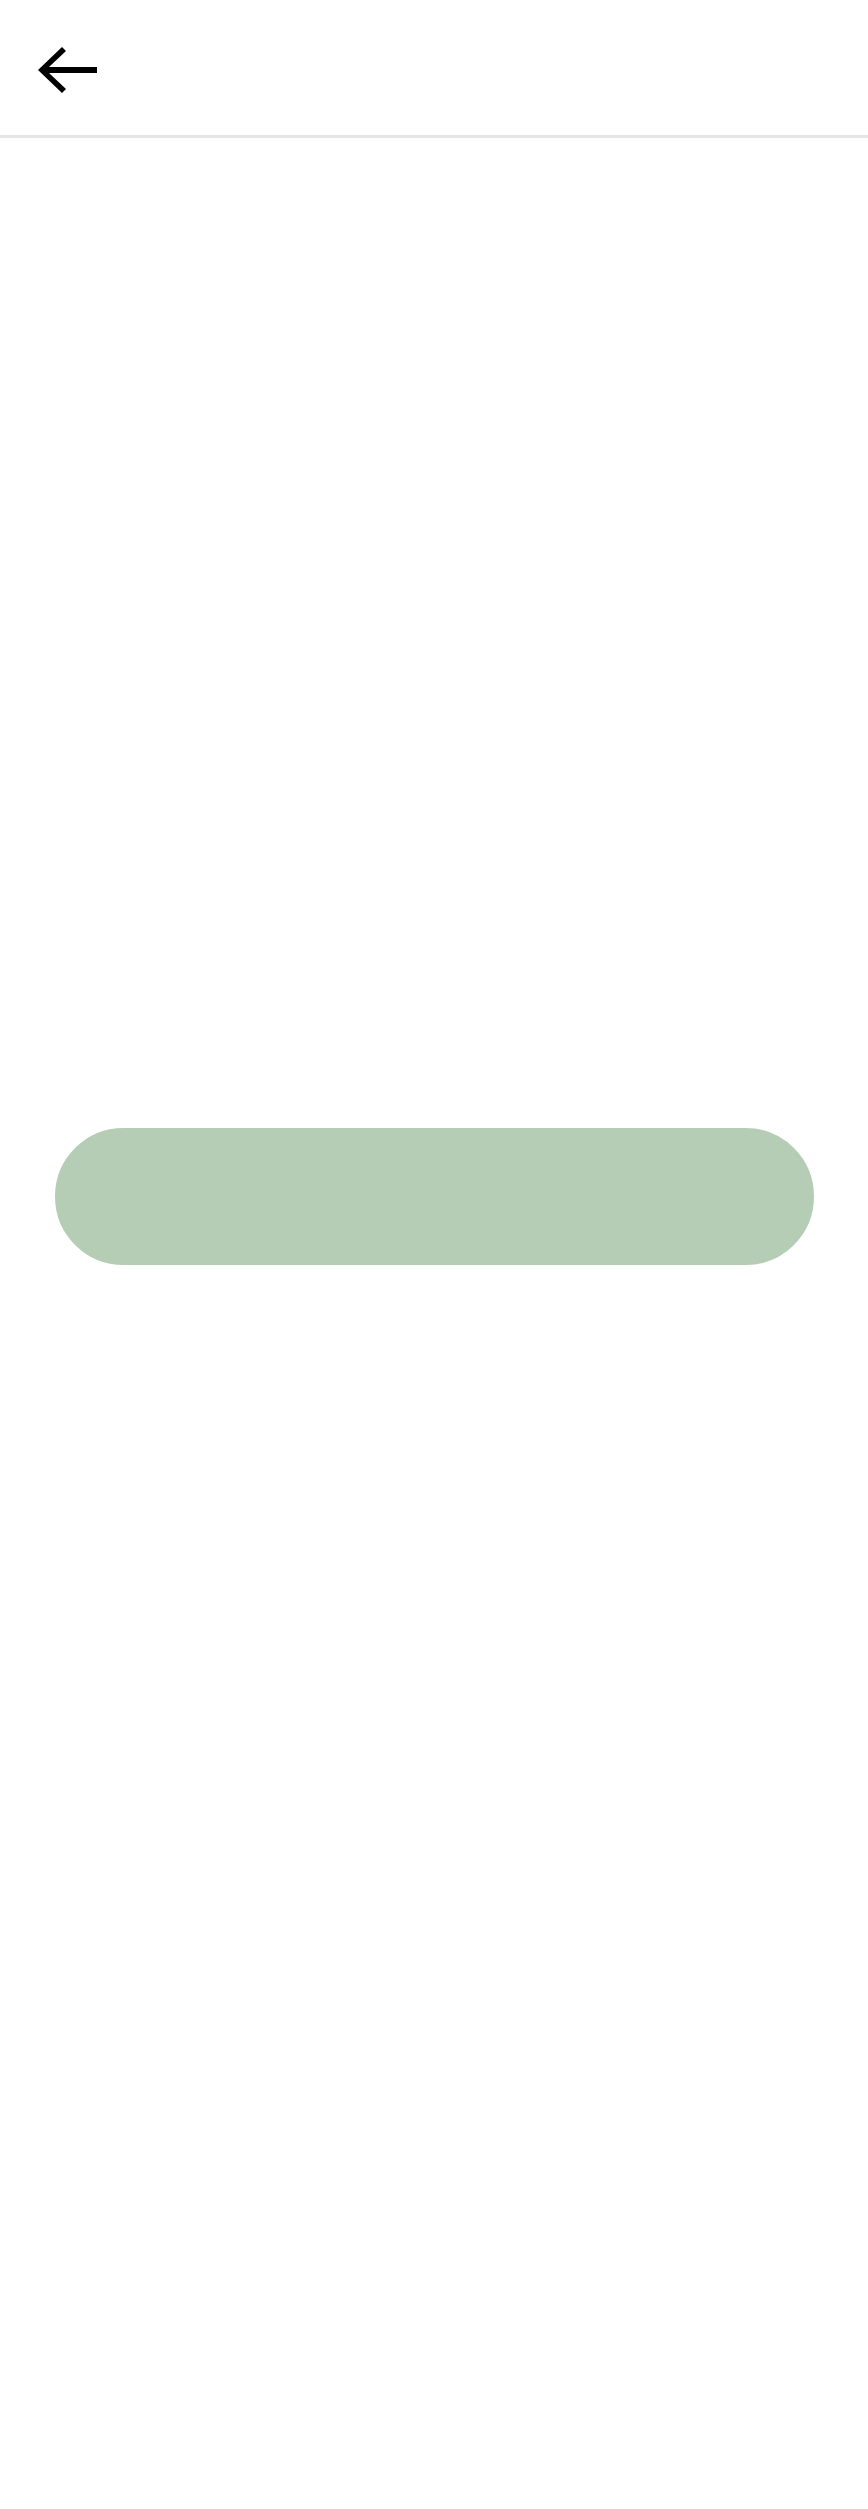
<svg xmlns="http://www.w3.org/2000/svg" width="868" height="2509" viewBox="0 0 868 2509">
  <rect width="100%" height="100%" fill="rgb(255,255,255)"/>
  <rect x="0" y="135" width="868" height="3" fill="rgb(230,230,230)"/>
  <path d="M62 47L66 51L49 67H97V73H49L66 89L62 93L38 70Z" fill="rgb(0,0,0)"/>
  <rect x="56.5" y="1129.5" width="756" height="134" rx="67" fill="rgb(181,205,181)" stroke="rgb(181,205,181)" stroke-width="3"/>
</svg>
